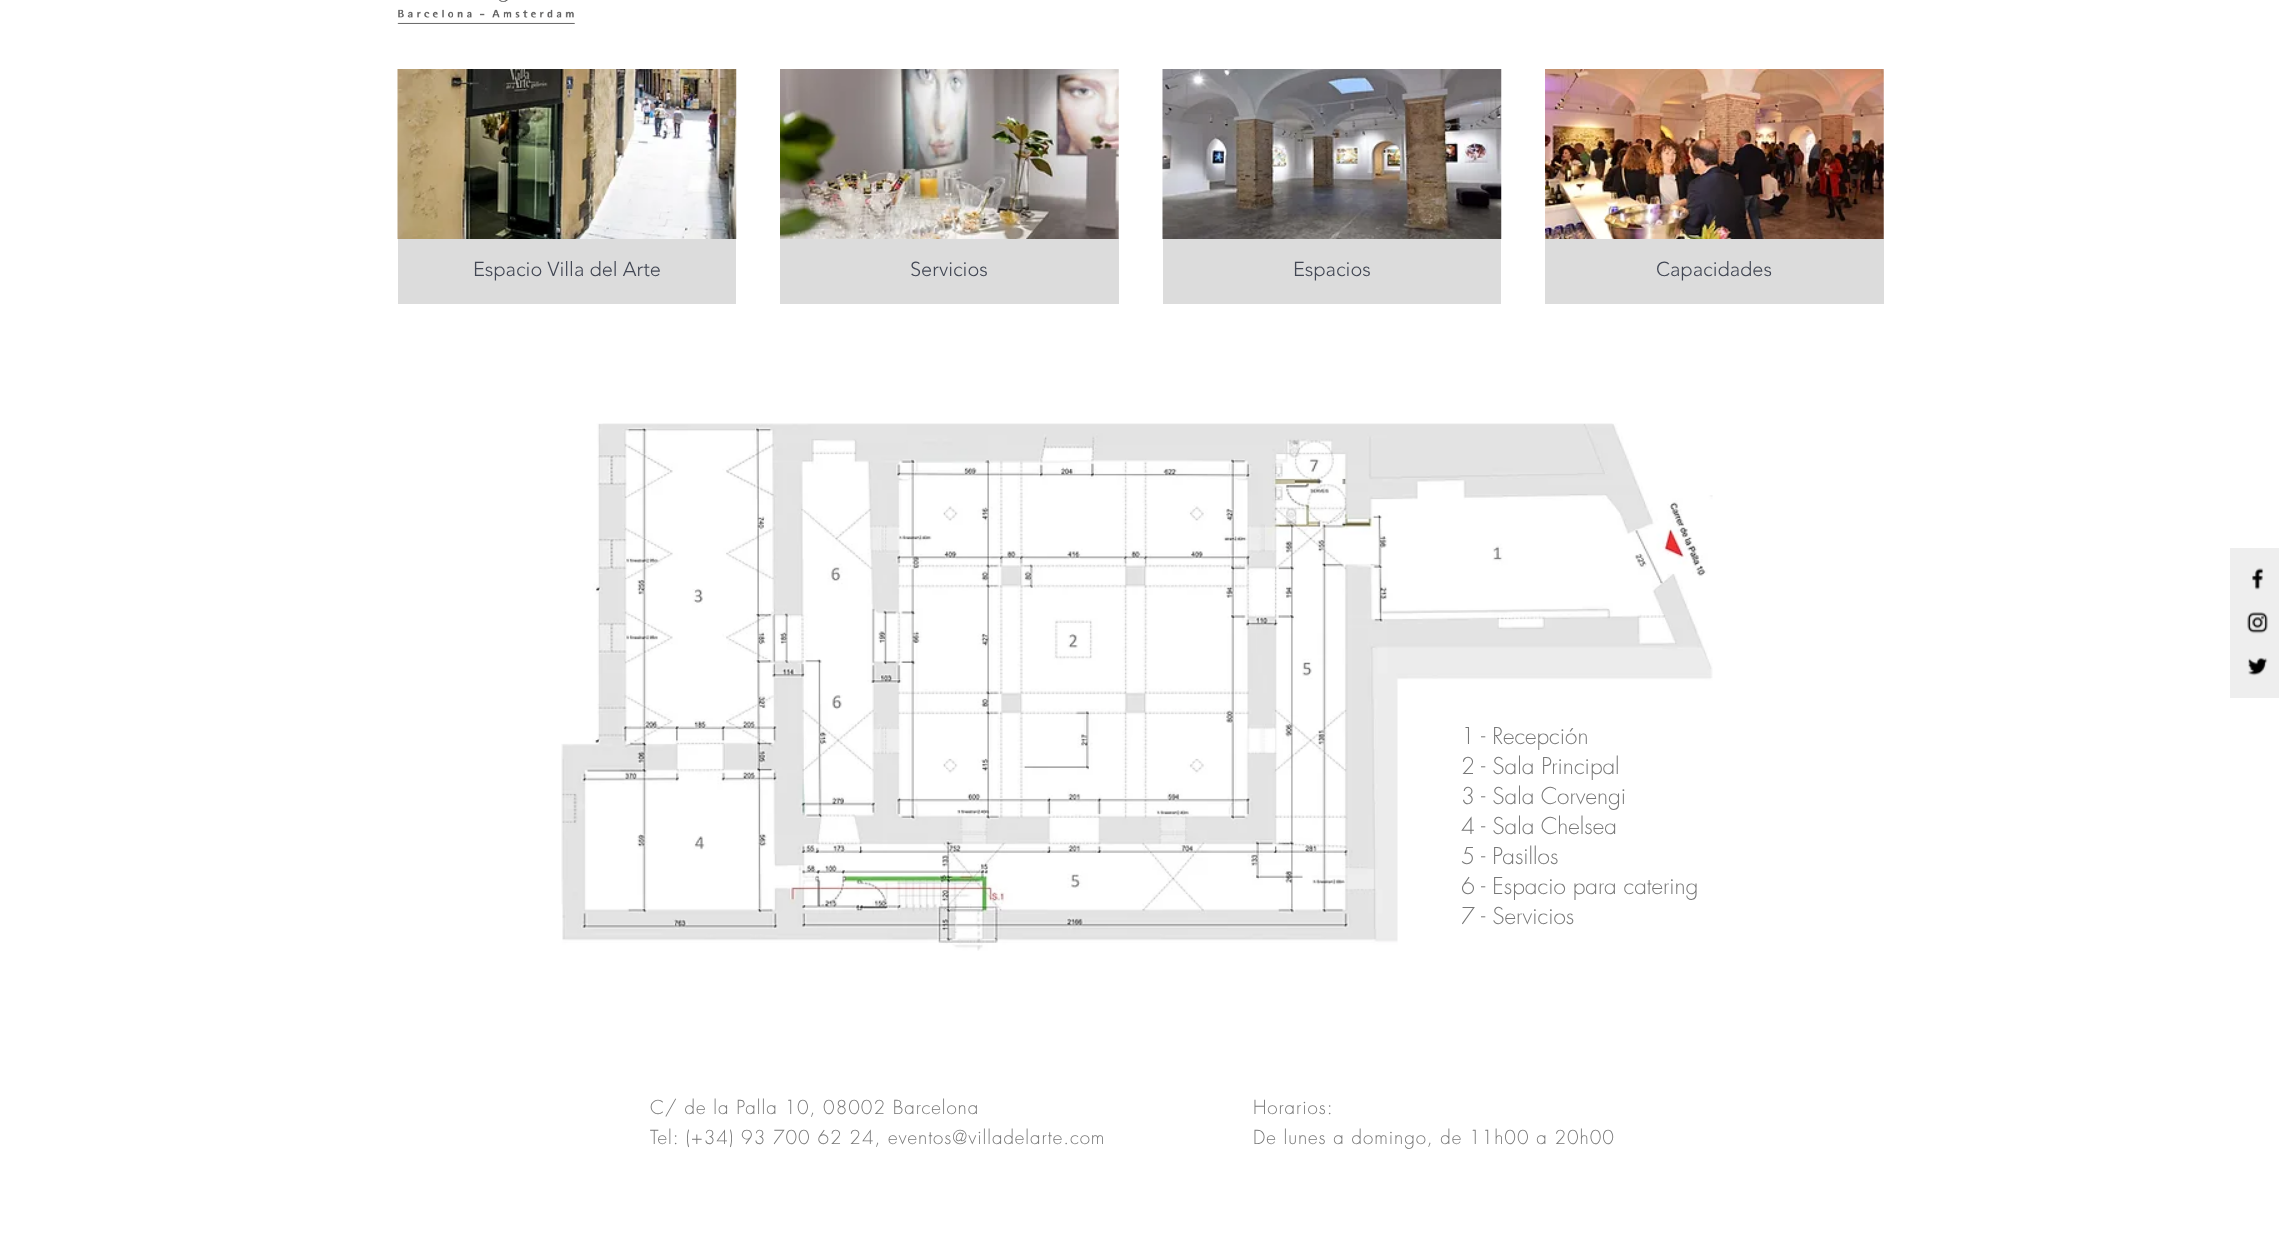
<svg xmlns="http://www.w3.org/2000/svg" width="2279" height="1244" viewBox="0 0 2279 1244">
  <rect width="100%" height="100%" fill="rgb(255,255,255)"/>
  <image x="397" y="0" width="178" height="24" href="pic1.png"/>
  <image x="397" y="69" width="340" height="170" href="pic2.png"/>
  <rect x="398" y="239" width="338" height="65" fill="rgb(220,220,220)"/>
  <text x="473" y="276" font-family="'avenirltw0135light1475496'" font-size="20" font-weight="300" fill="rgb(66,71,84)">Espacio Villa del Arte</text>
  <image x="780" y="69" width="339" height="170" href="pic3.png"/>
  <rect x="780" y="239" width="339" height="65" fill="rgb(220,220,220)"/>
  <text x="910" y="276" font-family="'avenirltw0135light1475496'" font-size="20" font-weight="300" fill="rgb(66,71,84)">Servicios</text>
  <image x="1162" y="69" width="340" height="170" href="pic4.png"/>
  <rect x="1163" y="239" width="338" height="65" fill="rgb(220,220,220)"/>
  <text x="1293" y="276" font-family="'avenirltw0135light1475496'" font-size="20" font-weight="300" fill="rgb(66,71,84)">Espacios</text>
  <image x="1545" y="69" width="339" height="170" href="pic5.png"/>
  <rect x="1545" y="239" width="339" height="65" fill="rgb(220,220,220)"/>
  <text x="1656" y="276" font-family="'avenirltw0135light1475496'" font-size="20" font-weight="300" fill="rgb(66,71,84)">Capacidades</text>
  <image x="561" y="423" width="1152" height="528" href="pic6.png"/>
  <g font-family="futura" font-size="22.5" font-weight="300" fill="rgb(120,120,120)">
    <text>
      <tspan x="1461" y="744">1 - Recepción</tspan>
      <tspan x="1461" y="774">2 - Sala Principal</tspan>
      <tspan x="1461" y="804">3 - Sala Corvengi</tspan>
      <tspan x="1461" y="834">4 - Sala Chelsea</tspan>
      <tspan x="1461" y="864">5 - Pasillos</tspan>
      <tspan x="1461" y="894">6 - Espacio para catering</tspan>
      <tspan x="1461" y="924">7 - Servicios</tspan>
    </text>
  </g>
  <rect x="2230" y="548" width="49" height="150" fill="rgb(238,238,238)"/>
  <image x="2252" y="568" width="12" height="22" href="pic7.png"/>
  <image x="2247" y="612" width="21" height="22" href="pic8.png"/>
  <image x="2248" y="657" width="20" height="19" href="pic9.png"/>
  <g font-family="futura" font-size="18.75" font-weight="300" letter-spacing="0.95" fill="rgb(120,120,120)">
    <text>
      <tspan x="650" y="1114">C/ de la Palla 10, 08002 Barcelona</tspan>
      <tspan x="650" y="1144">Tel: (+34) 93 700 62 24, eventos@villadelarte.com</tspan>
    </text>
    <text>
      <tspan x="1253" y="1114">Horarios:</tspan>
      <tspan x="1253" y="1144">De lunes a domingo, de 11h00 a 20h00</tspan>
    </text>
  </g>
</svg>
